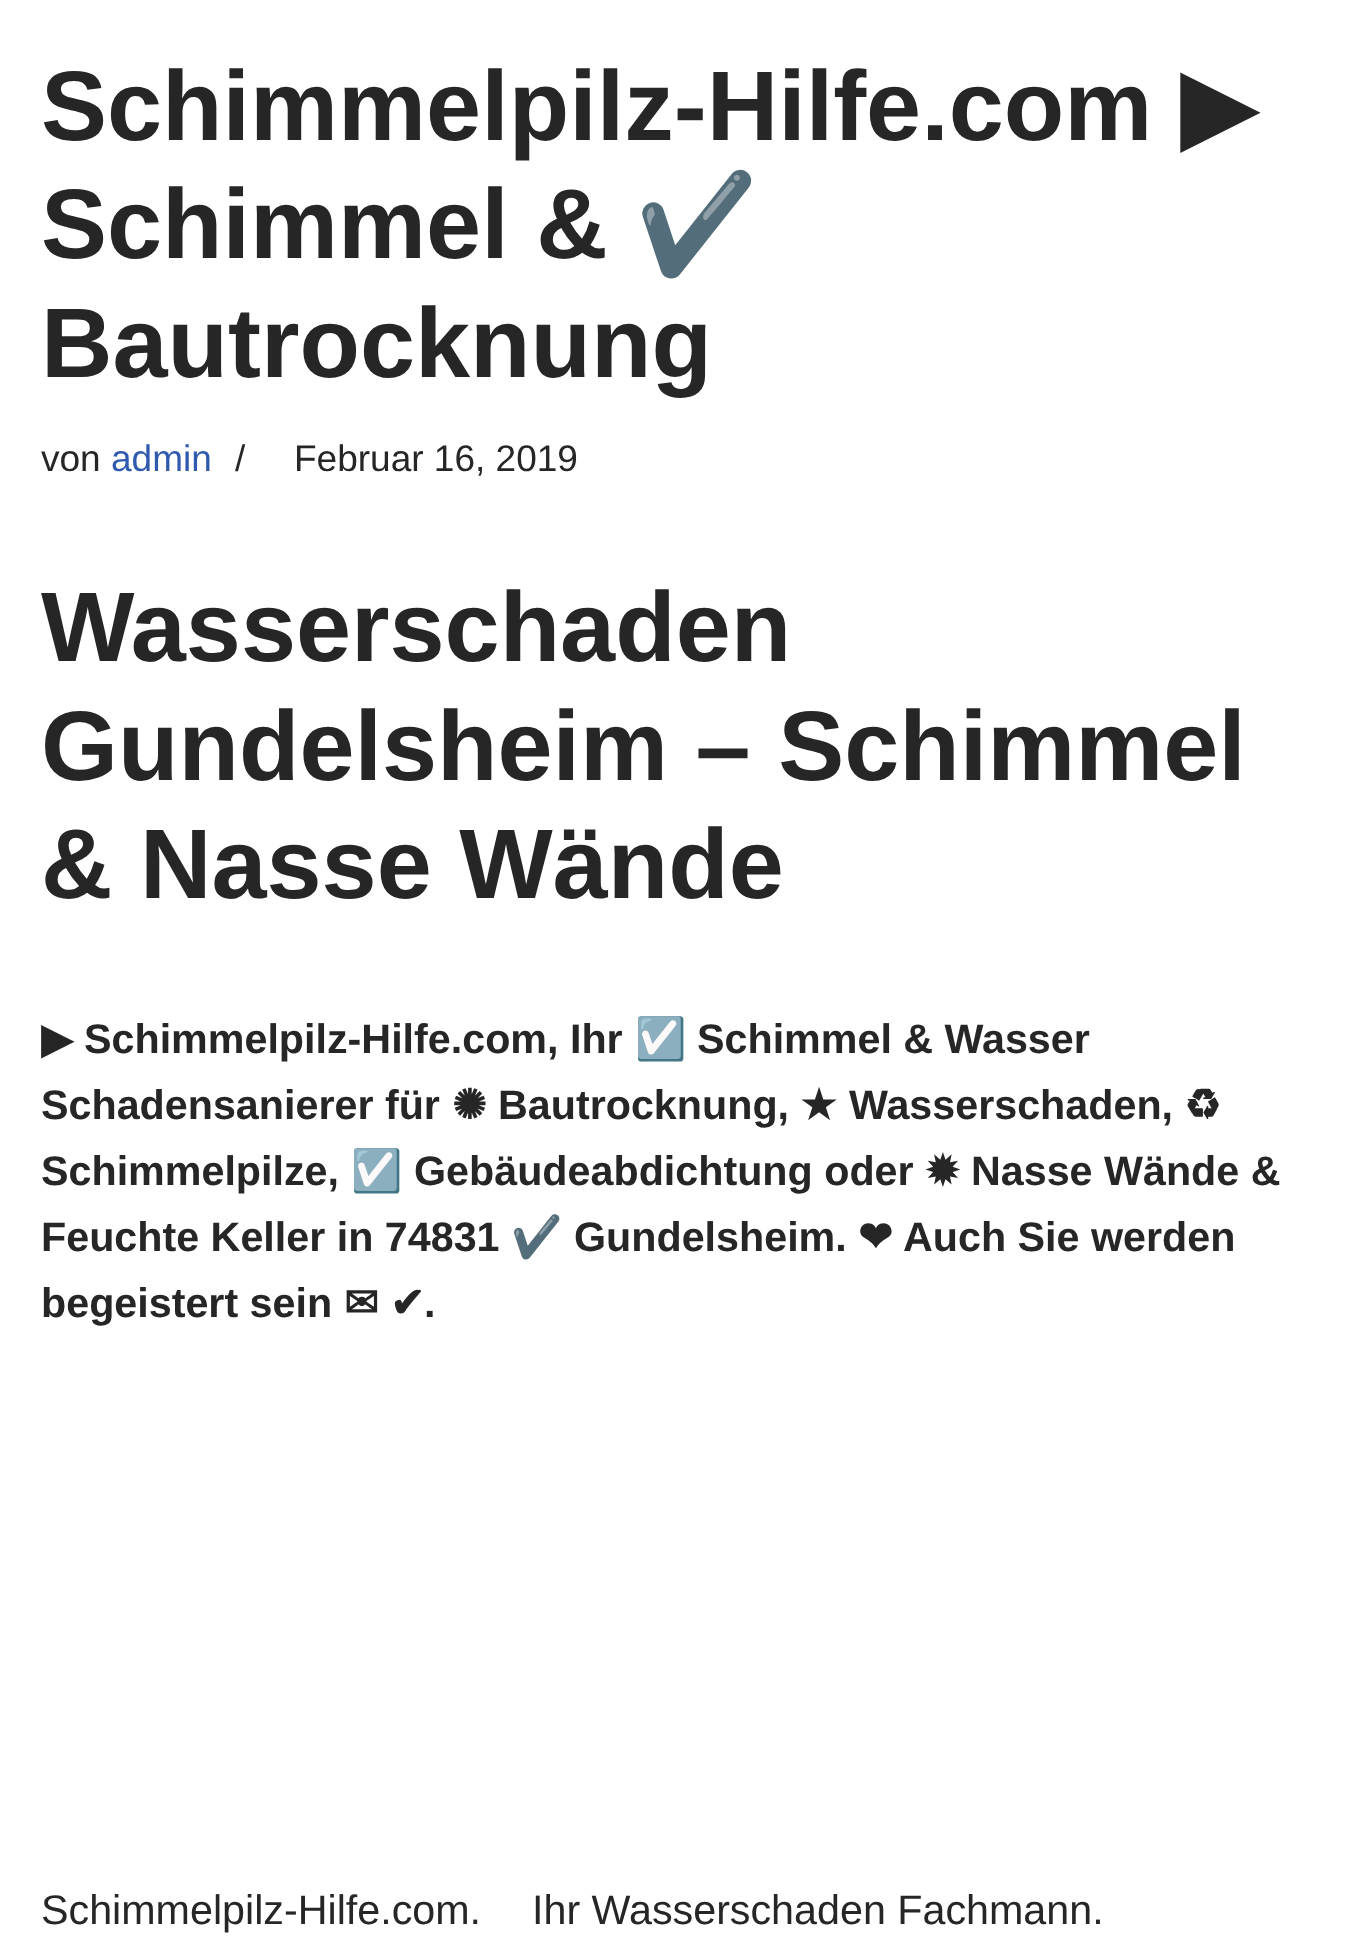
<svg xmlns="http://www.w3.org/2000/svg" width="1363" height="1956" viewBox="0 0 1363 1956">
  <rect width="100%" height="100%" fill="rgb(255,255,255)"/>
  <text x="41" y="140" font-family="Liberation Sans" font-size="99" font-weight="bold" fill="rgb(39,38,38)">Schimmelpilz-Hilfe.com</text>
  <text x="1180" y="140" font-family="DejaVu Sans" font-size="99" font-weight="bold" fill="rgb(39,38,38)">▶︎</text>
  <text x="41" y="258" font-family="Liberation Sans" font-size="99" font-weight="bold" fill="rgb(39,38,38)">Schimmel &amp;</text>
  <text x="635" y="258" font-family="Noto Color Emoji" font-size="99" font-weight="bold" fill="rgb(39,38,38)">✔️</text>
  <text x="41" y="377" font-family="Liberation Sans" font-size="99" font-weight="bold" fill="rgb(39,38,38)">Bautrocknung</text>
  <text x="41" y="471" font-family="Liberation Sans" font-size="37" fill="rgb(39,38,38)">von</text>
  <text x="111" y="471" font-family="Liberation Sans" font-size="37" fill="rgb(47,90,174)">admin</text>
  <g font-family="Liberation Sans" font-size="37" fill="rgb(39,38,38)">
    <text x="235" y="471">/</text>
    <text x="294" y="471">Februar 16, 2019</text>
  </g>
  <g font-family="Liberation Sans" font-size="99" font-weight="bold" fill="rgb(39,38,38)">
    <text>
      <tspan x="41" y="661">Wasserschaden</tspan>
      <tspan x="41" y="780">Gundelsheim – Schimmel</tspan>
      <tspan x="41" y="898">&amp; Nasse Wände</tspan>
    </text>
  </g>
  <text x="41" y="1053" font-family="DejaVu Sans" font-size="41.25" font-weight="bold" fill="rgb(39,38,38)">▶︎</text>
  <text x="84" y="1053" font-family="Liberation Sans" font-size="41.25" font-weight="bold" fill="rgb(39,38,38)">Schimmelpilz-Hilfe.com, Ihr</text>
  <text x="635" y="1053" font-family="Noto Color Emoji" font-size="41.25" font-weight="bold" fill="rgb(39,38,38)">☑️</text>
  <g font-family="Liberation Sans" font-size="41.25" font-weight="bold" fill="rgb(39,38,38)">
    <text x="697" y="1053">Schimmel &amp; Wasser</text>
    <text x="41" y="1119">Schadensanierer für</text>
  </g>
  <text x="452" y="1119" font-family="DejaVu Sans" font-size="41.25" font-weight="bold" fill="rgb(39,38,38)">✺</text>
  <text x="498" y="1119" font-family="Liberation Sans" font-size="41.25" font-weight="bold" fill="rgb(39,38,38)">Bautrocknung,</text>
  <text x="800" y="1119" font-family="DejaVu Sans" font-size="41.25" font-weight="bold" fill="rgb(39,38,38)">★</text>
  <text x="849" y="1119" font-family="Liberation Sans" font-size="41.25" font-weight="bold" fill="rgb(39,38,38)">Wasserschaden,</text>
  <text x="1184" y="1119" font-family="DejaVu Sans" font-size="41.25" font-weight="bold" fill="rgb(39,38,38)">♻</text>
  <text x="41" y="1185" font-family="Liberation Sans" font-size="41.25" font-weight="bold" fill="rgb(39,38,38)">Schimmelpilze,</text>
  <text x="351" y="1185" font-family="Noto Color Emoji" font-size="41.25" font-weight="bold" fill="rgb(39,38,38)">☑️</text>
  <text x="414" y="1185" font-family="Liberation Sans" font-size="41.25" font-weight="bold" fill="rgb(39,38,38)">Gebäudeabdichtung oder</text>
  <text x="925" y="1185" font-family="DejaVu Sans" font-size="41.25" font-weight="bold" fill="rgb(39,38,38)">✹</text>
  <g font-family="Liberation Sans" font-size="41.25" font-weight="bold" fill="rgb(39,38,38)">
    <text x="971" y="1185">Nasse Wände &amp;</text>
    <text x="41" y="1251">Feuchte Keller in 74831</text>
  </g>
  <text x="511" y="1251" font-family="Noto Color Emoji" font-size="41.25" font-weight="bold" fill="rgb(39,38,38)">✔️</text>
  <text x="574" y="1251" font-family="Liberation Sans" font-size="41.25" font-weight="bold" fill="rgb(39,38,38)">Gundelsheim.</text>
  <text x="858" y="1251" font-family="DejaVu Sans" font-size="41.25" font-weight="bold" fill="rgb(39,38,38)">❤</text>
  <g font-family="Liberation Sans" font-size="41.25" font-weight="bold" fill="rgb(39,38,38)">
    <text x="903" y="1251">Auch Sie werden</text>
    <text x="41" y="1317">begeistert sein</text>
  </g>
  <g font-family="DejaVu Sans" font-size="41.25" font-weight="bold" fill="rgb(39,38,38)">
    <text x="344" y="1317">✉</text>
    <text x="390" y="1317">✔</text>
  </g>
  <text x="424" y="1317" font-family="Liberation Sans" font-size="41.25" font-weight="bold" fill="rgb(39,38,38)">.</text>
  <g font-family="Liberation Sans" font-size="41.25" fill="rgb(39,38,38)">
    <text x="41" y="1924">Schimmelpilz-Hilfe.com.</text>
    <text x="532" y="1924">Ihr Wasserschaden Fachmann.</text>
  </g>
</svg>
